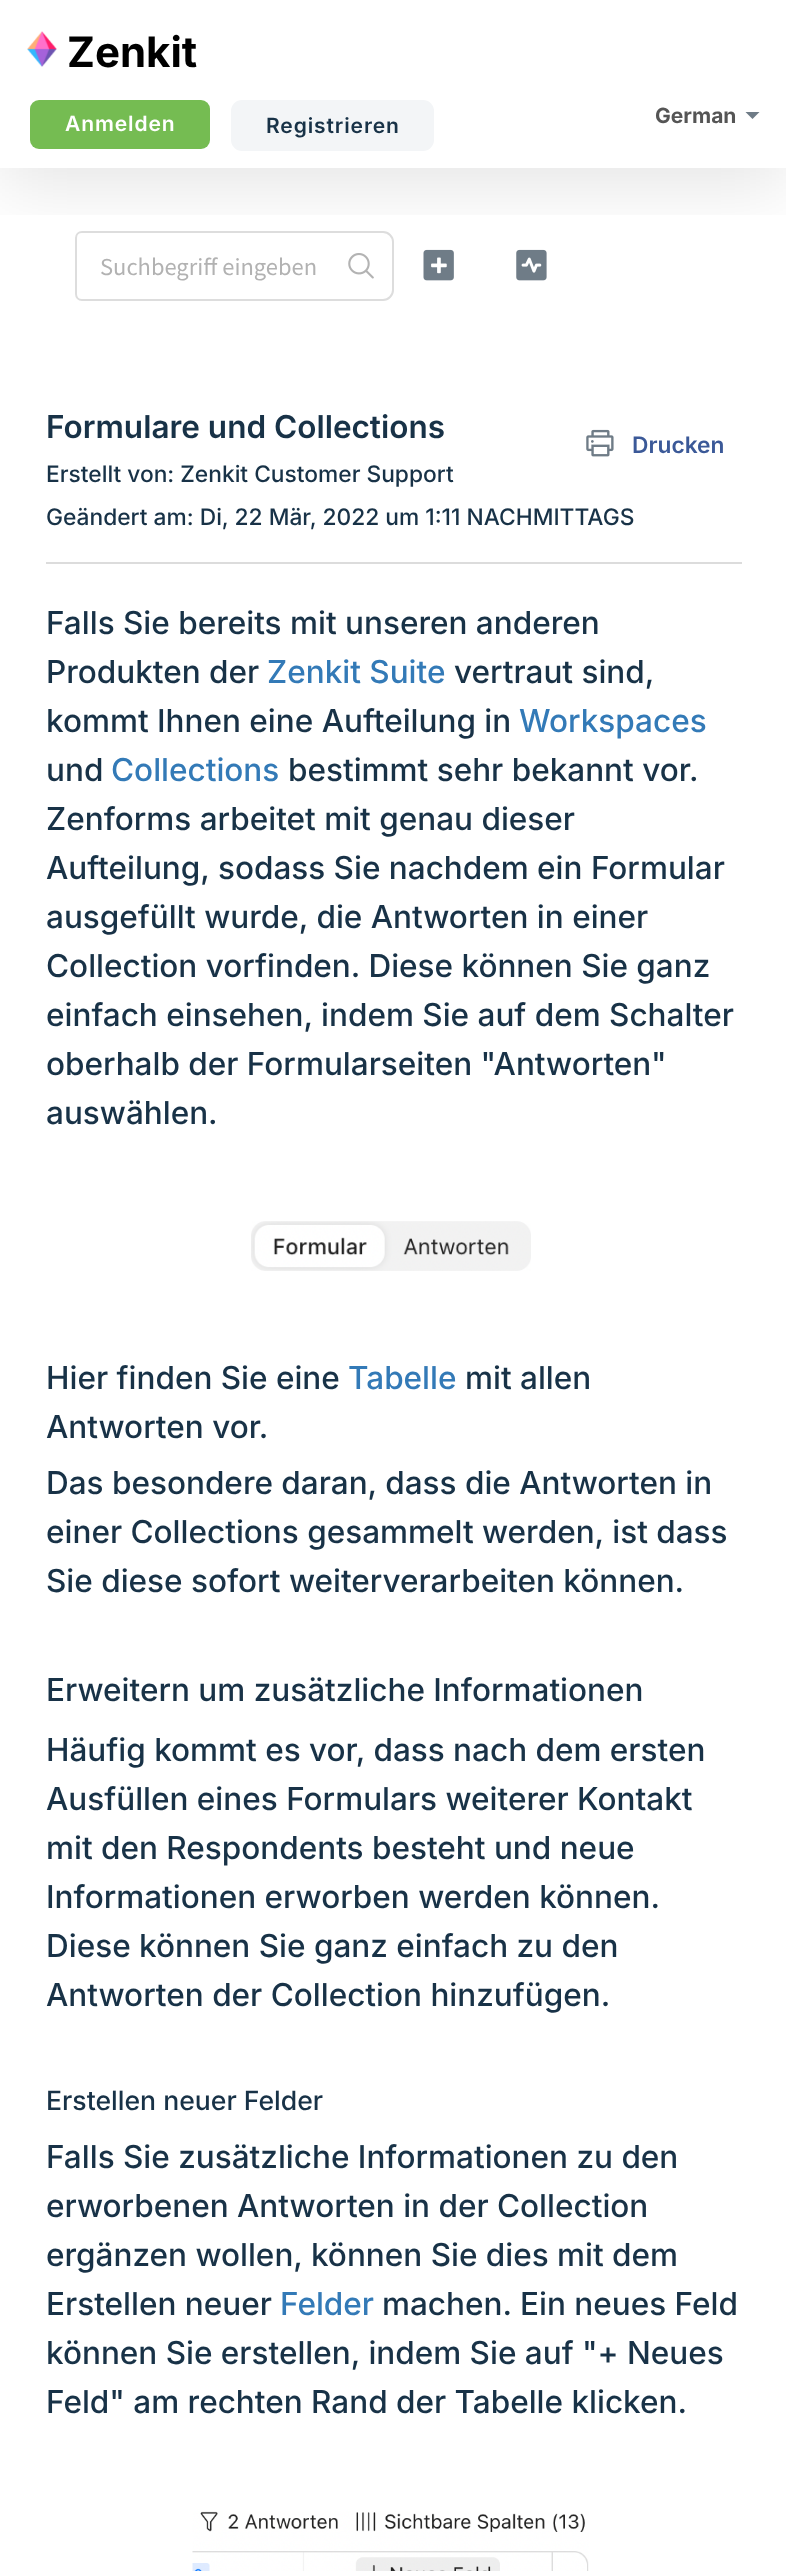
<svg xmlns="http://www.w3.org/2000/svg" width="786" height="2571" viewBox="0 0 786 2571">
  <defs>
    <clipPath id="clip1"><rect x="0" y="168" width="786" height="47"/></clipPath>
  </defs>
  <rect width="100%" height="100%" fill="rgb(255,255,255)"/>
  <path d="M82 232H383C388.5 232 393 236.5 393 242V290C393 295.5 388.5 300 383 300H82C78.5 300 76 297.5 76 294V238C76 234.5 78.5 232 82 232Z" fill="none" stroke="rgb(221,221,221)" stroke-width="2"/>
  <image x="348" y="253" width="26" height="26" href="pic2.png"/>
  <image x="423" y="249" width="31" height="32" href="pic3.png"/>
  <image x="516" y="249" width="31" height="32" href="pic4.png"/>
  <g clip-path="url(#clip1)">
    <rect x="0" y="18" width="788" height="168" fill="rgba(0,0,0,0.1)" filter="blur(35px)"/>
  </g>
  <image x="27" y="31" width="30" height="36" href="pic1.png"/>
  <text x="67" y="67" font-family="Inter" font-size="42" font-weight="bold" fill="rgb(0,0,0)">Zenkit</text>
  <rect x="30" y="100" width="180" height="49" rx="9" fill="rgb(117,188,82)"/>
  <text x="65" y="131" font-family="Inter" font-size="21" font-weight="600" letter-spacing="0.9" fill="rgb(255,255,255)">Anmelden</text>
  <rect x="231" y="100" width="203" height="51" rx="11" fill="rgb(243,245,247)"/>
  <text x="266" y="133" font-family="Inter" font-size="21" font-weight="600" letter-spacing="0.9" fill="rgb(24,50,71)">Registrieren</text>
  <text x="655" y="123" font-family="Inter" font-size="21" font-weight="bold" fill="rgb(85,85,85)">German</text>
  <path d="M745.5 112H759.5L752.5 119Z" fill="rgb(111,124,135)"/>
  <text x="100" y="275" font-family="Source Sans Pro" font-size="24.5" fill="rgb(178,178,178)">Suchbegriff eingeben</text>
  <text x="46" y="438" font-family="Inter" font-size="31.5" font-weight="600" fill="rgb(24,50,71)">Formulare und Collections</text>
  <image x="586" y="429" width="28" height="28" href="pic5.png"/>
  <text x="632" y="453" font-family="Inter" font-size="22.75" font-weight="600" fill="rgb(59,89,152)">Drucken</text>
  <g font-family="Inter" font-size="22.75" font-weight="500" fill="rgb(24,50,71)">
    <text>
      <tspan x="46" y="482">Erstellt von: Zenkit Customer Support</tspan>
      <tspan x="46" y="525">Geändert am: Di, 22 Mär, 2022 um 1:11 NACHMITTAGS</tspan>
    </text>
  </g>
  <rect x="46" y="562" width="696" height="2" fill="rgb(220,220,220)"/>
  <g font-family="Inter" font-size="31.5" font-weight="500" fill="rgb(24,50,71)">
    <text>
      <tspan x="46" y="634">Falls Sie bereits mit unseren anderen</tspan>
      <tspan x="46" y="683">Produkten der</tspan>
    </text>
  </g>
  <text x="267" y="683" font-family="Inter" font-size="31.5" font-weight="500" fill="rgb(51,122,183)">Zenkit Suite</text>
  <g font-family="Inter" font-size="31.5" font-weight="500" fill="rgb(24,50,71)">
    <text x="454" y="683">vertraut sind,</text>
    <text x="46" y="732">kommt Ihnen eine Aufteilung in</text>
  </g>
  <text x="519" y="732" font-family="Inter" font-size="31.5" font-weight="500" fill="rgb(51,122,183)">Workspaces</text>
  <text x="46" y="781" font-family="Inter" font-size="31.5" font-weight="500" fill="rgb(24,50,71)">und</text>
  <text x="111" y="781" font-family="Inter" font-size="31.5" font-weight="500" fill="rgb(51,122,183)">Collections</text>
  <g font-family="Inter" font-size="31.5" font-weight="500" fill="rgb(24,50,71)">
    <text x="288" y="781">bestimmt sehr bekannt vor.</text>
    <text>
      <tspan x="46" y="830">Zenforms arbeitet mit genau dieser</tspan>
      <tspan x="46" y="879">Aufteilung, sodass Sie nachdem ein Formular</tspan>
      <tspan x="46" y="928">ausgefüllt wurde, die Antworten in einer</tspan>
      <tspan x="46" y="977">Collection vorfinden. Diese können Sie ganz</tspan>
      <tspan x="46" y="1026">einfach einsehen, indem Sie auf dem Schalter</tspan>
      <tspan x="46" y="1075">oberhalb der Formularseiten "Antworten"</tspan>
      <tspan x="46" y="1124">auswählen.</tspan>
    </text>
  </g>
  <image x="251" y="1221" width="280" height="50" href="pic6.png"/>
  <text x="46" y="1389" font-family="Inter" font-size="31.5" font-weight="500" fill="rgb(24,50,71)">Hier finden Sie eine</text>
  <text x="348" y="1389" font-family="Inter" font-size="31.5" font-weight="500" fill="rgb(51,122,183)">Tabelle</text>
  <g font-family="Inter" font-size="31.5" font-weight="500" fill="rgb(24,50,71)">
    <text x="465" y="1389">mit allen</text>
    <text>
      <tspan x="46" y="1438">Antworten vor.</tspan>
      <tspan x="46" y="1494">Das besondere daran, dass die Antworten in</tspan>
      <tspan x="46" y="1543">einer Collections gesammelt werden, ist dass</tspan>
      <tspan x="46" y="1592">Sie diese sofort weiterverarbeiten können.</tspan>
    </text>
    <text>
      <tspan x="46" y="1701">Erweitern um zusätzliche Informationen</tspan>
      <tspan x="46" y="1761">Häufig kommt es vor, dass nach dem ersten</tspan>
      <tspan x="46" y="1810">Ausfüllen eines Formulars weiterer Kontakt</tspan>
      <tspan x="46" y="1859">mit den Respondents besteht und neue</tspan>
      <tspan x="46" y="1908">Informationen erworben werden können.</tspan>
      <tspan x="46" y="1957">Diese können Sie ganz einfach zu den</tspan>
      <tspan x="46" y="2006">Antworten der Collection hinzufügen.</tspan>
    </text>
  </g>
  <text x="46" y="2110" font-family="Inter" font-size="26.6" font-weight="500" fill="rgb(24,50,71)">Erstellen neuer Felder</text>
  <g font-family="Inter" font-size="31.5" font-weight="500" fill="rgb(24,50,71)">
    <text>
      <tspan x="46" y="2168">Falls Sie zusätzliche Informationen zu den</tspan>
      <tspan x="46" y="2217">erworbenen Antworten in der Collection</tspan>
      <tspan x="46" y="2266">ergänzen wollen, können Sie dies mit dem</tspan>
      <tspan x="46" y="2315">Erstellen neuer</tspan>
    </text>
  </g>
  <text x="280" y="2315" font-family="Inter" font-size="31.5" font-weight="500" fill="rgb(51,122,183)">Felder</text>
  <g font-family="Inter" font-size="31.5" font-weight="500" fill="rgb(24,50,71)">
    <text x="382" y="2315">machen. Ein neues Feld</text>
    <text>
      <tspan x="46" y="2364">können Sie erstellen, indem Sie auf "+ Neues</tspan>
      <tspan x="46" y="2413">Feld" am rechten Rand der Tabelle klicken.</tspan>
    </text>
  </g>
  <image x="192" y="2511" width="397" height="60" href="pic7.png"/>
</svg>
